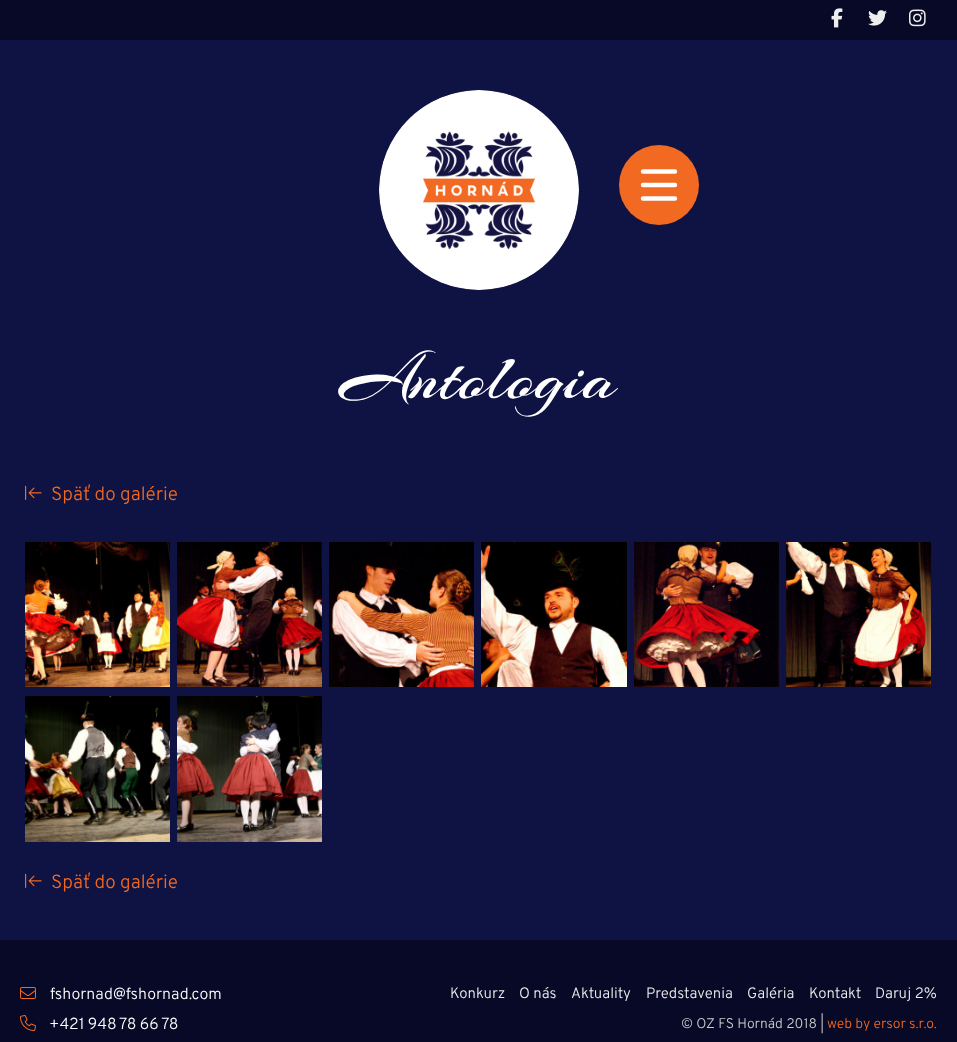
<svg xmlns="http://www.w3.org/2000/svg" width="957" height="1042" viewBox="0 0 957 1042">
  <rect width="100%" height="100%" fill="rgb(15,19,67)"/>
  <rect x="0" y="0" width="957" height="40" fill="rgb(8,9,39)"/>
  <image x="831" y="8" width="12" height="20" href="pic1.png"/>
  <image x="868" y="10" width="19" height="16" href="pic2.png"/>
  <image x="909" y="9" width="17" height="18" href="pic3.png"/>
  <image x="379" y="90" width="200" height="200" href="pic4.png"/>
  <circle cx="659" cy="185" r="40" fill="rgb(242,106,34)"/>
  <path d="M643 171.5H675M643 185H675M643 198.5H675" fill="none" stroke="rgb(255,255,255)" stroke-width="4.4" stroke-linecap="round"/>
  <text x="340" y="398" font-family="Arizonia" font-size="70" fill="rgb(255,255,255)">Antologia</text>
  <image x="25" y="485" width="17" height="15" href="pic5.png"/>
  <text x="51" y="500" font-family="Overpass" font-size="19" font-weight="300" fill="rgb(242,105,33)">Späť do galérie</text>
  <image x="25" y="542" width="145" height="145" href="pic6.png"/>
  <image x="177" y="542" width="145" height="145" href="pic7.png"/>
  <image x="329" y="542" width="145" height="145" href="pic8.png"/>
  <image x="481" y="542" width="146" height="145" href="pic9.png"/>
  <image x="634" y="542" width="145" height="145" href="pic10.png"/>
  <image x="786" y="542" width="145" height="145" href="pic11.png"/>
  <image x="25" y="696" width="145" height="146" href="pic12.png"/>
  <image x="177" y="696" width="145" height="146" href="pic13.png"/>
  <image x="25" y="873" width="17" height="15" href="pic5.png"/>
  <text x="51" y="888" font-family="Overpass" font-size="19" font-weight="300" fill="rgb(242,105,33)">Späť do galérie</text>
  <rect x="0" y="940" width="957" height="102" fill="rgb(8,9,39)"/>
  <image x="20" y="987" width="16" height="12" href="pic14.png"/>
  <text x="50" y="999" font-family="Overpass" font-size="16" font-weight="300" fill="rgb(255,255,255)">fshornad@fshornad.com</text>
  <image x="20" y="1015" width="16" height="16" href="pic15.png"/>
  <text x="49" y="1029" word-spacing="-0.5" font-family="Overpass" font-size="16" font-weight="300" fill="rgb(255,255,255)">+421 948 78 66 78</text>
  <g font-family="Overpass" font-size="15" font-weight="300" fill="rgb(238,238,238)">
    <text x="450" y="998">Konkurz</text>
    <text x="519" y="998">O nás</text>
    <text x="571" y="998">Aktuality</text>
    <text x="646" y="998">Predstavenia</text>
    <text x="747" y="998">Galéria</text>
    <text x="809" y="998">Kontakt</text>
    <text x="875" y="998">Daruj 2%</text>
  </g>
  <text x="681" y="1028" font-family="Overpass" font-size="14" font-weight="300" fill="rgb(204,204,204)">© OZ FS Hornád 2018 |</text>
  <text x="827" y="1028" font-family="Overpass" font-size="14" font-weight="300" fill="rgb(242,105,33)">web by ersor s.r.o.</text>
</svg>
